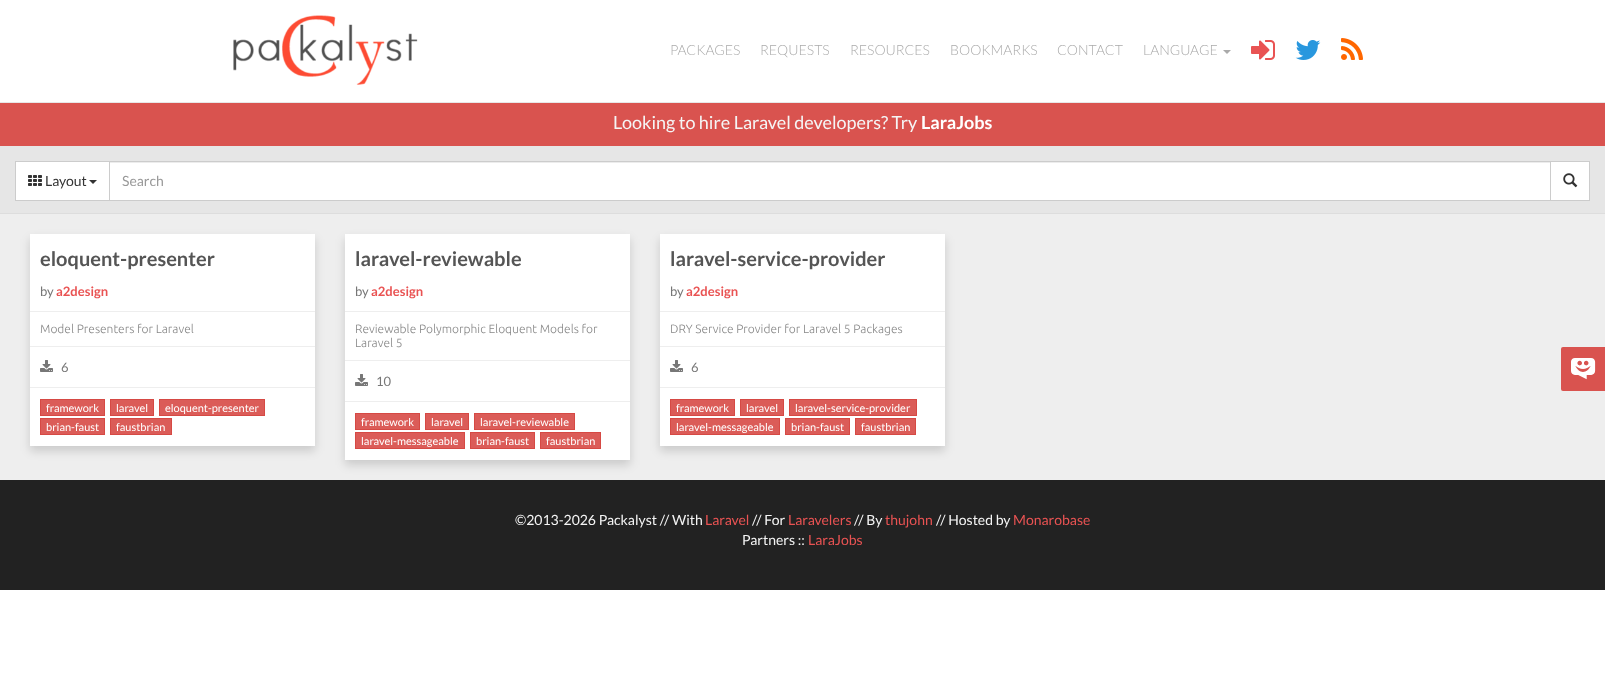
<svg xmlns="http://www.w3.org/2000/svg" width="1605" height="694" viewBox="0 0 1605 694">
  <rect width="100%" height="100%" fill="rgb(255,255,255)"/>
  <rect x="0" y="102" width="1605" height="1" fill="rgb(231,231,231)"/>
  <image x="233" y="15" width="185" height="70" href="pic1.png"/>
  <g font-family="Lato" font-size="14" font-weight="300" fill="rgb(170,170,170)">
    <text x="670" y="55">PACKAGES</text>
    <text x="760" y="55">REQUESTS</text>
    <text x="850" y="55">RESOURCES</text>
    <text x="950" y="55">BOOKMARKS</text>
    <text x="1057" y="55">CONTACT</text>
    <text x="1143" y="55">LANGUAGE</text>
  </g>
  <path d="M1223 50H1231L1227 54Z" fill="rgb(170,170,170)"/>
  <image x="1251" y="40" width="24" height="20" href="pic2.png"/>
  <image x="1295" y="40" width="26" height="20" href="pic3.png"/>
  <image x="1341" y="38" width="22" height="22" href="pic4.png"/>
  <rect x="0" y="103" width="1605" height="43" fill="rgb(217,83,79)"/>
  <text x="613" y="129" font-family="Lato" font-size="18" fill="rgb(245,245,245)">Looking to hire Laravel developers? Try</text>
  <text x="921" y="129" font-family="Lato" font-size="18" font-weight="bold" fill="rgb(255,255,255)">LaraJobs</text>
  <rect x="0" y="214" width="1605" height="266" fill="rgb(238,238,238)"/>
  <rect x="0" y="146" width="1605" height="67" fill="rgb(230,230,230)"/>
  <rect x="0" y="213" width="1605" height="1" fill="rgb(221,221,221)"/>
  <rect x="15.5" y="161.5" width="94" height="39" fill="rgb(255,255,255)" stroke="rgb(204,204,204)"/>
  <image x="28" y="175" width="14" height="11" href="pic5.png"/>
  <text x="45" y="186" font-family="Lato" font-size="14" fill="rgb(51,51,51)">Layout</text>
  <path d="M89 180H97L93 184Z" fill="rgb(51,51,51)"/>
  <rect x="110" y="163" width="1440" height="37" fill="rgb(255,255,255)"/>
  <rect x="110" y="162" width="1440" height="1" fill="rgb(236,236,236)"/>
  <rect x="109.5" y="161.5" width="1441" height="39" fill="none" stroke="rgb(204,204,204)"/>
  <text x="122" y="186" font-family="Lato" font-size="14" fill="rgb(153,153,153)">Search</text>
  <rect x="1550.5" y="161.5" width="39" height="39" fill="rgb(255,255,255)" stroke="rgb(204,204,204)"/>
  <image x="1563" y="173" width="15" height="15" href="pic6.png"/>
  <rect x="30" y="239" width="285" height="212" fill="rgba(0,0,0,0.15)" filter="blur(5px)"/>
  <rect x="30" y="234" width="285" height="212" fill="rgb(255,255,255)"/>
  <text x="40" y="266" font-family="Lato" font-size="20" font-weight="bold" fill="rgb(85,85,85)">eloquent-presenter</text>
  <text x="40" y="296" font-family="Lato" font-size="13" fill="rgb(119,119,119)">by</text>
  <text x="56" y="296" font-family="Lato" font-size="13" font-weight="bold" fill="rgb(233,83,83)">a2design</text>
  <rect x="30" y="311" width="285" height="1" fill="rgb(238,238,238)"/>
  <text x="40" y="333" font-family="Ubuntu" font-size="12" font-weight="300" fill="rgb(136,136,136)">Model Presenters for Laravel</text>
  <rect x="30" y="346" width="285" height="1" fill="rgb(238,238,238)"/>
  <image x="40" y="360" width="13" height="12" href="pic7.png"/>
  <text x="61" y="372" font-family="Lato" font-size="13" fill="rgb(119,119,119)">6</text>
  <rect x="30" y="387" width="285" height="1" fill="rgb(238,238,238)"/>
  <rect x="40.5" y="399.5" width="64" height="16" fill="rgb(219,92,88)" stroke="rgb(214,73,68)"/>
  <text x="46" y="412" font-family="Lato" font-size="11" fill="rgb(255,255,255)">framework</text>
  <rect x="110.5" y="399.5" width="43" height="16" fill="rgb(219,92,88)" stroke="rgb(214,73,68)"/>
  <text x="116" y="412" font-family="Lato" font-size="11" fill="rgb(255,255,255)">laravel</text>
  <rect x="159.5" y="399.5" width="105" height="16" fill="rgb(219,92,88)" stroke="rgb(214,73,68)"/>
  <text x="165" y="412" font-family="Lato" font-size="11" fill="rgb(255,255,255)">eloquent-presenter</text>
  <rect x="40.5" y="418.5" width="64" height="16" fill="rgb(219,92,88)" stroke="rgb(214,73,68)"/>
  <text x="46" y="431" font-family="Lato" font-size="11" fill="rgb(255,255,255)">brian-faust</text>
  <rect x="110.5" y="418.5" width="61" height="16" fill="rgb(219,92,88)" stroke="rgb(214,73,68)"/>
  <text x="116" y="431" font-family="Lato" font-size="11" fill="rgb(255,255,255)">faustbrian</text>
  <rect x="0" y="480" width="1605" height="110" fill="rgb(34,34,34)"/>
  <rect x="345" y="239" width="285" height="226" fill="rgba(0,0,0,0.15)" filter="blur(5px)"/>
  <rect x="345" y="234" width="285" height="226" fill="rgb(255,255,255)"/>
  <text x="355" y="266" font-family="Lato" font-size="20" font-weight="bold" fill="rgb(85,85,85)">laravel-reviewable</text>
  <text x="355" y="296" font-family="Lato" font-size="13" fill="rgb(119,119,119)">by</text>
  <text x="371" y="296" font-family="Lato" font-size="13" font-weight="bold" fill="rgb(233,83,83)">a2design</text>
  <rect x="345" y="311" width="285" height="1" fill="rgb(238,238,238)"/>
  <g font-family="Ubuntu" font-size="12" font-weight="300" fill="rgb(136,136,136)">
    <text>
      <tspan x="355" y="333">Reviewable Polymorphic Eloquent Models for</tspan>
      <tspan x="355" y="347">Laravel 5</tspan>
    </text>
  </g>
  <rect x="345" y="360" width="285" height="1" fill="rgb(238,238,238)"/>
  <image x="355" y="374" width="13" height="12" href="pic7.png"/>
  <text x="376" y="386" font-family="Lato" font-size="13" fill="rgb(119,119,119)">10</text>
  <rect x="345" y="401" width="285" height="1" fill="rgb(238,238,238)"/>
  <rect x="355.5" y="413.5" width="64" height="16" fill="rgb(219,92,88)" stroke="rgb(214,73,68)"/>
  <text x="361" y="426" font-family="Lato" font-size="11" fill="rgb(255,255,255)">framework</text>
  <rect x="425.5" y="413.5" width="43" height="16" fill="rgb(219,92,88)" stroke="rgb(214,73,68)"/>
  <text x="431" y="426" font-family="Lato" font-size="11" fill="rgb(255,255,255)">laravel</text>
  <rect x="474.5" y="413.5" width="100" height="16" fill="rgb(219,92,88)" stroke="rgb(214,73,68)"/>
  <text x="480" y="426" font-family="Lato" font-size="11" fill="rgb(255,255,255)">laravel-reviewable</text>
  <rect x="355.5" y="432.5" width="109" height="16" fill="rgb(219,92,88)" stroke="rgb(214,73,68)"/>
  <text x="361" y="445" font-family="Lato" font-size="11" fill="rgb(255,255,255)">laravel-messageable</text>
  <rect x="470.5" y="432.5" width="64" height="16" fill="rgb(219,92,88)" stroke="rgb(214,73,68)"/>
  <text x="476" y="445" font-family="Lato" font-size="11" fill="rgb(255,255,255)">brian-faust</text>
  <rect x="540.5" y="432.5" width="60" height="16" fill="rgb(219,92,88)" stroke="rgb(214,73,68)"/>
  <text x="546" y="445" font-family="Lato" font-size="11" fill="rgb(255,255,255)">faustbrian</text>
  <rect x="660" y="239" width="285" height="212" fill="rgba(0,0,0,0.15)" filter="blur(5px)"/>
  <rect x="660" y="234" width="285" height="212" fill="rgb(255,255,255)"/>
  <text x="670" y="266" font-family="Lato" font-size="20" font-weight="bold" fill="rgb(85,85,85)">laravel-service-provider</text>
  <text x="670" y="296" font-family="Lato" font-size="13" fill="rgb(119,119,119)">by</text>
  <text x="686" y="296" font-family="Lato" font-size="13" font-weight="bold" fill="rgb(233,83,83)">a2design</text>
  <rect x="660" y="311" width="285" height="1" fill="rgb(238,238,238)"/>
  <text x="670" y="333" font-family="Ubuntu" font-size="12" font-weight="300" fill="rgb(136,136,136)">DRY Service Provider for Laravel 5 Packages</text>
  <rect x="660" y="346" width="285" height="1" fill="rgb(238,238,238)"/>
  <image x="670" y="360" width="13" height="12" href="pic7.png"/>
  <text x="691" y="372" font-family="Lato" font-size="13" fill="rgb(119,119,119)">6</text>
  <rect x="660" y="387" width="285" height="1" fill="rgb(238,238,238)"/>
  <rect x="670.5" y="399.5" width="64" height="16" fill="rgb(219,92,88)" stroke="rgb(214,73,68)"/>
  <text x="676" y="412" font-family="Lato" font-size="11" fill="rgb(255,255,255)">framework</text>
  <rect x="740.5" y="399.5" width="43" height="16" fill="rgb(219,92,88)" stroke="rgb(214,73,68)"/>
  <text x="746" y="412" font-family="Lato" font-size="11" fill="rgb(255,255,255)">laravel</text>
  <rect x="789.5" y="399.5" width="127" height="16" fill="rgb(219,92,88)" stroke="rgb(214,73,68)"/>
  <text x="795" y="412" font-family="Lato" font-size="11" fill="rgb(255,255,255)">laravel-service-provider</text>
  <rect x="670.5" y="418.5" width="109" height="16" fill="rgb(219,92,88)" stroke="rgb(214,73,68)"/>
  <text x="676" y="431" font-family="Lato" font-size="11" fill="rgb(255,255,255)">laravel-messageable</text>
  <rect x="785.5" y="418.5" width="64" height="16" fill="rgb(219,92,88)" stroke="rgb(214,73,68)"/>
  <text x="791" y="431" font-family="Lato" font-size="11" fill="rgb(255,255,255)">brian-faust</text>
  <rect x="855.5" y="418.5" width="60" height="16" fill="rgb(219,92,88)" stroke="rgb(214,73,68)"/>
  <text x="861" y="431" font-family="Lato" font-size="11" fill="rgb(255,255,255)">faustbrian</text>
  <image x="1561" y="347" width="44" height="44" href="pic8.png"/>
  <text x="515" y="525" font-family="Lato" font-size="14" fill="rgb(245,245,245)">©2013-2026 Packalyst // With</text>
  <text x="705" y="525" font-family="Lato" font-size="14" fill="rgb(233,83,83)">Laravel</text>
  <text x="752" y="525" font-family="Lato" font-size="14" fill="rgb(245,245,245)">// For</text>
  <text x="788" y="525" font-family="Lato" font-size="14" fill="rgb(233,83,83)">Laravelers</text>
  <text x="854" y="525" font-family="Lato" font-size="14" fill="rgb(245,245,245)">// By</text>
  <text x="885" y="525" font-family="Lato" font-size="14" fill="rgb(233,83,83)">thujohn</text>
  <text x="936" y="525" font-family="Lato" font-size="14" fill="rgb(245,245,245)">// Hosted by</text>
  <text x="1013" y="525" font-family="Lato" font-size="14" fill="rgb(233,83,83)">Monarobase</text>
  <text x="742" y="545" font-family="Lato" font-size="14" fill="rgb(245,245,245)">Partners ::</text>
  <text x="808" y="545" font-family="Lato" font-size="14" fill="rgb(233,83,83)">LaraJobs</text>
</svg>
